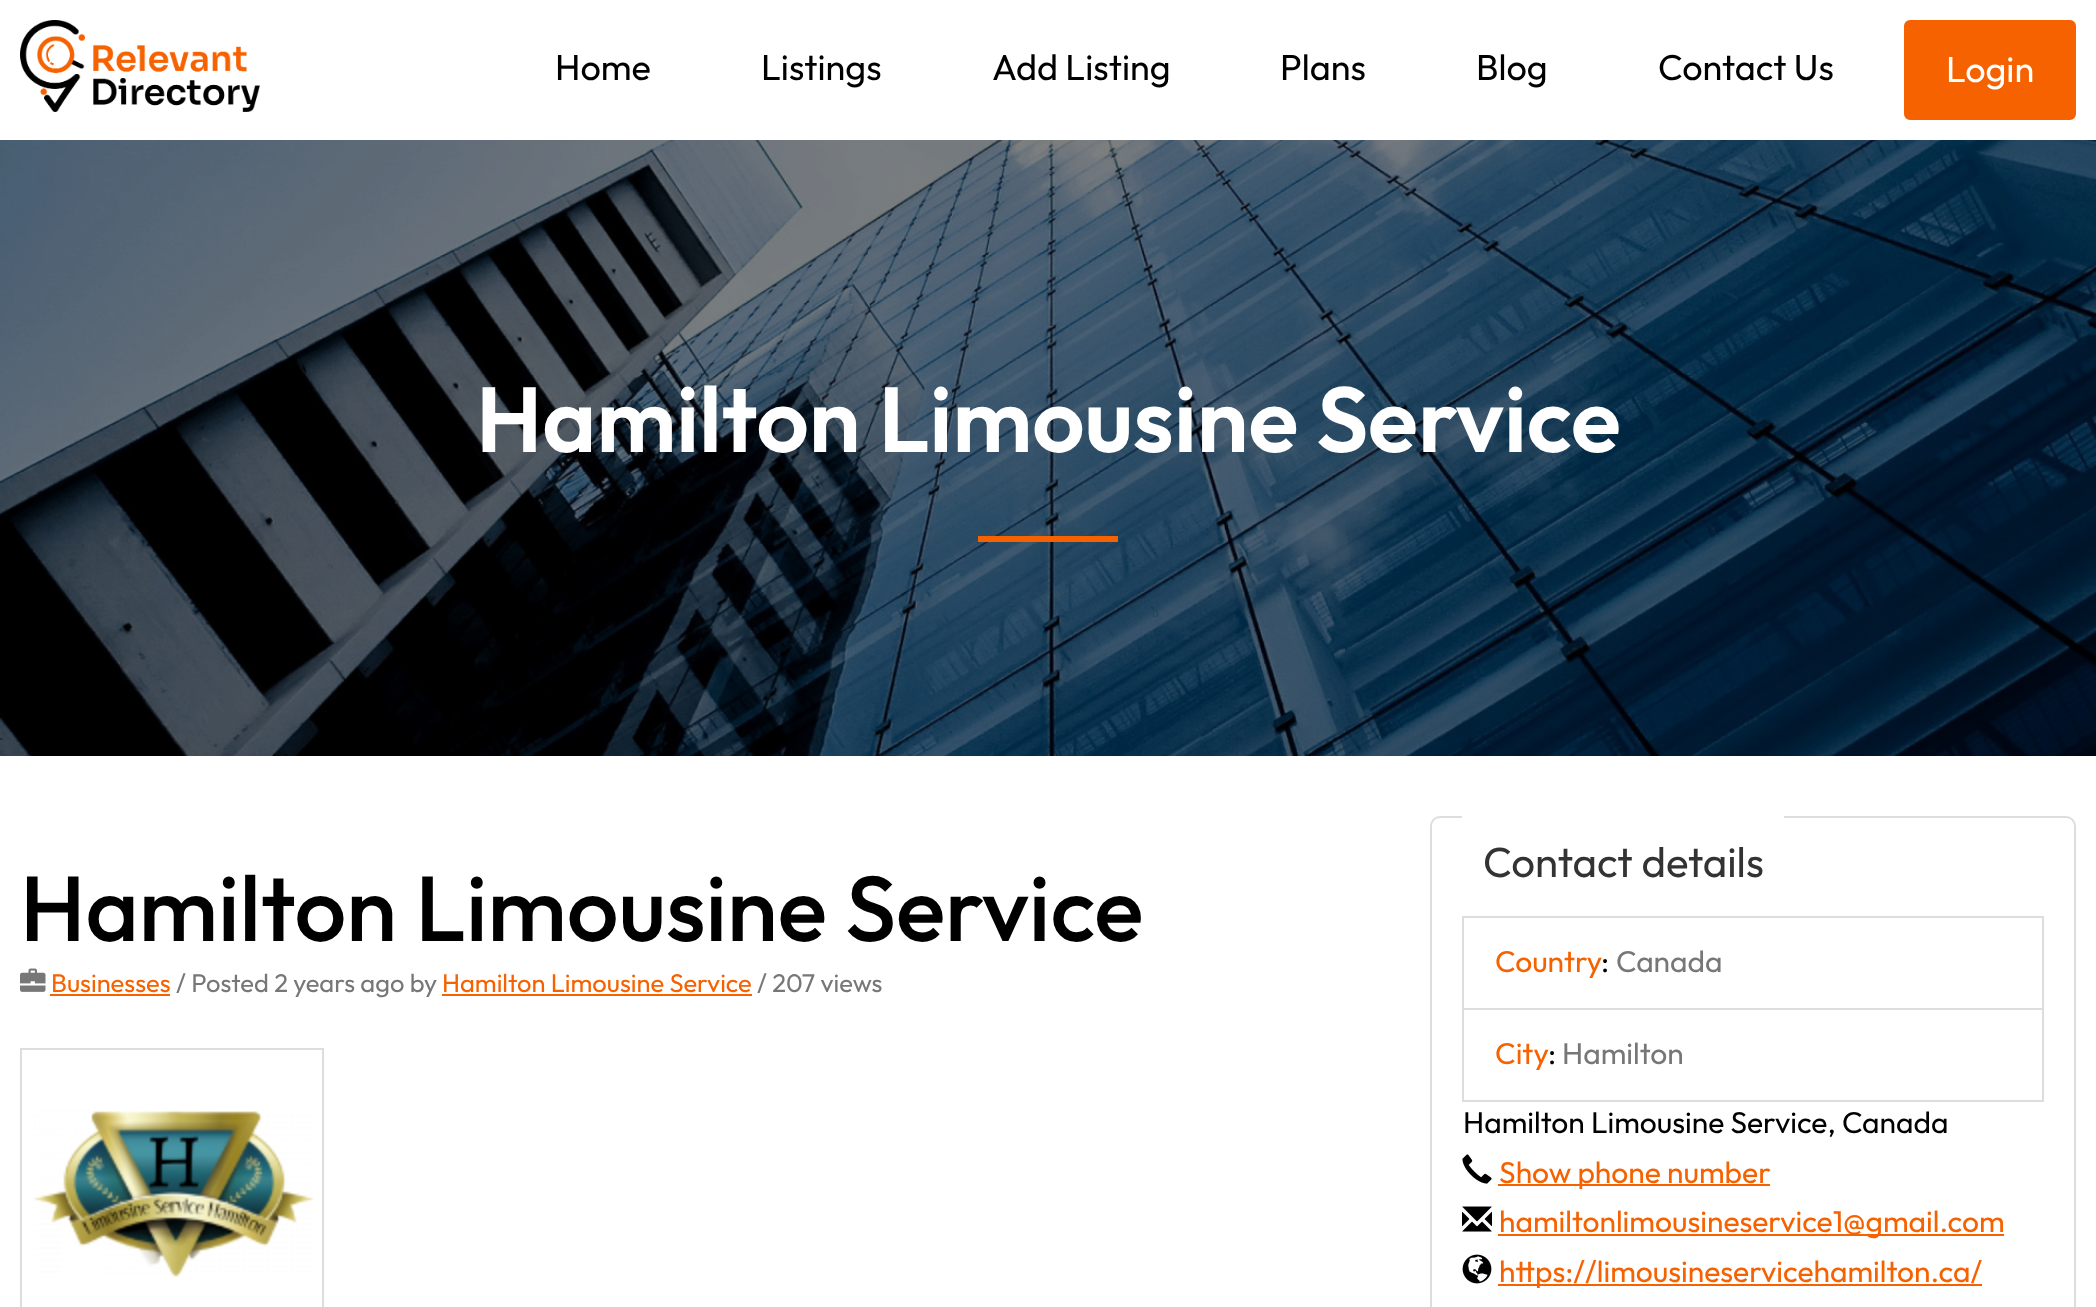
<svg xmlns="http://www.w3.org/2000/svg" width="2096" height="1307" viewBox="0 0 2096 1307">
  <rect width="100%" height="100%" fill="rgb(255,255,255)"/>
  <image x="20" y="20" width="240" height="92" href="pic1.png"/>
  <g font-family="Outfit" font-size="36" fill="rgb(0,0,0)">
    <text x="555" y="80">Home</text>
    <text x="761" y="80">Listings</text>
    <text x="992" y="80">Add Listing</text>
    <text x="1280" y="80">Plans</text>
    <text x="1476" y="80">Blog</text>
    <text x="1658" y="80">Contact Us</text>
  </g>
  <rect x="1905" y="21" width="170" height="98" rx="5" fill="rgb(246,98,0)" stroke="rgb(246,98,0)" stroke-width="2"/>
  <text x="1946" y="82" font-family="Outfit" font-size="36" fill="rgb(255,255,255)">Login</text>
  <image x="0" y="140" width="2096" height="616" href="pic2.png"/>
  <text x="476" y="452" font-family="Outfit" font-size="92" font-weight="600" fill="rgb(255,255,255)">Hamilton Limousine Service</text>
  <rect x="978" y="536" width="140" height="6" fill="rgb(246,98,0)"/>
  <text x="20" y="941" font-family="Outfit" font-size="92" font-weight="500" fill="rgb(0,0,0)">Hamilton Limousine Service</text>
  <image x="20" y="968" width="26" height="24" href="pic3.png"/>
  <text x="51" y="992" font-family="Outfit" font-size="25.5" fill="rgb(246,98,0)">Businesses</text>
  <rect x="50" y="994" width="120" height="2" fill="rgb(246,98,0)"/>
  <text x="176" y="992" font-family="Outfit" font-size="25.5" fill="rgb(119,119,119)">/ Posted 2 years ago by</text>
  <text x="442" y="992" font-family="Outfit" font-size="25.5" fill="rgb(246,98,0)">Hamilton Limousine Service</text>
  <rect x="442" y="994" width="310" height="2" fill="rgb(246,98,0)"/>
  <text x="757" y="992" font-family="Outfit" font-size="25.5" fill="rgb(119,119,119)">/ 207 views</text>
  <rect x="21" y="1049" width="302" height="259" fill="none" stroke="rgb(221,221,221)" stroke-width="2"/>
  <image x="33" y="1110" width="281" height="167" href="pic4.png"/>
  <rect x="1431" y="817" width="644" height="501" rx="9" fill="none" stroke="rgb(221,221,221)" stroke-width="2"/>
  <rect x="1462" y="816" width="322" height="2" fill="rgb(255,255,255)"/>
  <text x="1483" y="877" font-family="Outfit" font-size="42" fill="rgb(51,51,51)">Contact details</text>
  <rect x="1463" y="917" width="580" height="92" fill="none" stroke="rgb(221,221,221)" stroke-width="2"/>
  <text x="1495" y="972" font-family="Outfit" font-size="30" fill="rgb(246,98,0)">Country</text>
  <text x="1601" y="972" font-family="Outfit" font-size="30" fill="rgb(0,0,0)">:</text>
  <text x="1616" y="972" font-family="Outfit" font-size="30" fill="rgb(119,119,119)">Canada</text>
  <rect x="1463" y="1009" width="580" height="92" fill="none" stroke="rgb(221,221,221)" stroke-width="2"/>
  <text x="1495" y="1064" font-family="Outfit" font-size="30" fill="rgb(246,98,0)">City</text>
  <text x="1548" y="1064" font-family="Outfit" font-size="30" fill="rgb(0,0,0)">:</text>
  <text x="1562" y="1064" font-family="Outfit" font-size="30" fill="rgb(119,119,119)">Hamilton</text>
  <text x="1463" y="1133" font-family="Outfit" font-size="30" fill="rgb(0,0,0)">Hamilton Limousine Service, Canada</text>
  <image x="1462" y="1154" width="30" height="30" href="pic5.png"/>
  <rect x="1498" y="1184" width="272" height="2" fill="rgb(246,98,0)"/>
  <text x="1499" y="1183" font-family="Outfit" font-size="30" fill="rgb(246,98,0)">Show phone number</text>
  <image x="1462" y="1206" width="30" height="26" href="pic6.png"/>
  <rect x="1498" y="1234" width="506" height="2" fill="rgb(246,98,0)"/>
  <text x="1499" y="1232" font-family="Outfit" font-size="30" fill="rgb(246,98,0)">hamiltonlimousineservice1@gmail.com</text>
  <image x="1462" y="1254" width="30" height="30" href="pic7.png"/>
  <rect x="1498" y="1284" width="484" height="2" fill="rgb(246,98,0)"/>
  <text x="1499" y="1282" font-family="Outfit" font-size="30" fill="rgb(246,98,0)">https://limousineservicehamilton.ca/</text>
</svg>
